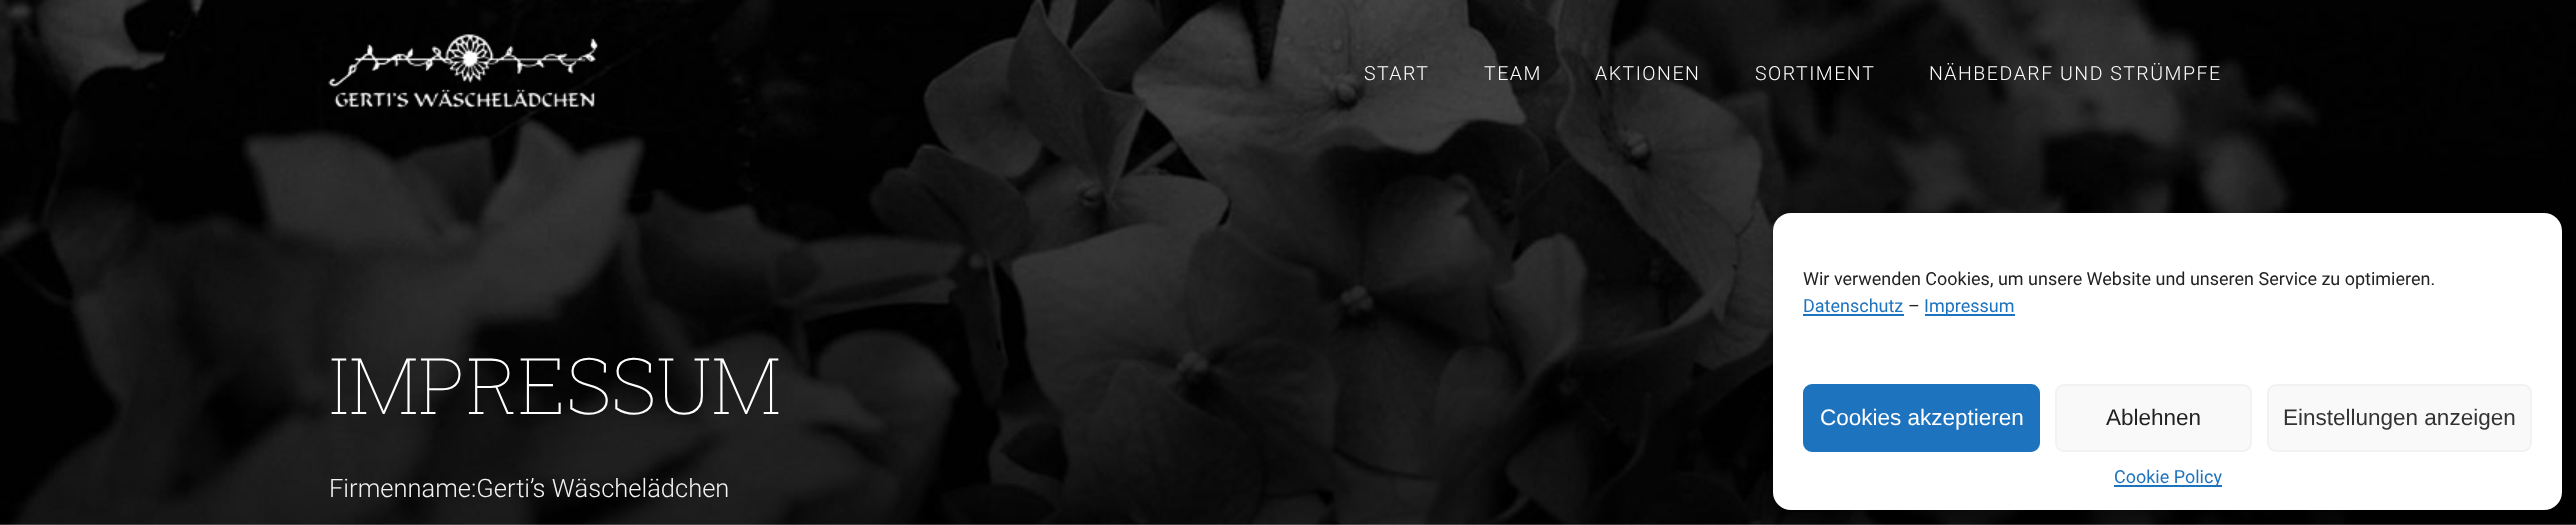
<svg xmlns="http://www.w3.org/2000/svg" width="2576" height="525" viewBox="0 0 2576 525">
  <rect width="100%" height="100%" fill="rgb(255,255,255)"/>
  <image x="0" y="0" width="2576" height="525" href="pic1.png"/>
  <image x="328" y="34" width="271" height="75" href="pic2.png"/>
  <g font-family="Heebo" font-size="19.5" font-weight="300" letter-spacing="1.5" fill="rgb(255,255,255)">
    <text x="1364" y="80">START</text>
    <text x="1484" y="80">TEAM</text>
    <text x="1595" y="80">AKTIONEN</text>
    <text x="1755" y="80">SORTIMENT</text>
    <text x="1929" y="80">NÄHBEDARF UND STRÜMPFE</text>
  </g>
  <text x="329" y="414" font-family="Roboto Slab" font-size="78" font-weight="100" fill="rgb(255,255,255)">IMPRESSUM</text>
  <text x="329" y="497" font-family="Heebo" font-size="25.5" font-weight="300" fill="rgb(242,242,242)">Firmenname:Gerti’s Wäschelädchen</text>
  <rect x="1773" y="222" width="789" height="297" rx="18" fill="rgba(0,0,0,0.23)" filter="blur(4.5px)"/>
  <rect x="1773" y="213" width="789" height="297" rx="18" fill="rgb(255,255,255)"/>
  <text x="1803" y="285" font-family="Roboto" font-size="18" fill="rgb(34,34,34)">Wir verwenden Cookies, um unsere Website und unseren Service zu optimieren.</text>
  <text x="1803" y="312" font-family="Roboto" font-size="18" fill="rgb(30,115,190)">Datenschutz</text>
  <rect x="1803" y="314" width="101" height="2" fill="rgb(30,115,190)"/>
  <text x="1908" y="312" font-family="Roboto" font-size="18" fill="rgb(34,34,34)">–</text>
  <rect x="1925" y="314" width="90" height="2" fill="rgb(30,115,190)"/>
  <text x="1924" y="312" font-family="Roboto" font-size="18" fill="rgb(30,115,190)">Impressum</text>
  <rect x="1804" y="385" width="235" height="66" rx="8" fill="rgb(30,115,190)" stroke="rgb(30,115,190)" stroke-width="2"/>
  <text x="1820" y="425" font-family="Liberation Sans" font-size="22.5" fill="rgb(255,255,255)">Cookies akzeptieren</text>
  <rect x="2056" y="385" width="195" height="66" rx="8" fill="rgb(249,249,249)" stroke="rgb(242,242,242)" stroke-width="2"/>
  <text x="2106" y="425" font-family="Liberation Sans" font-size="22.5" fill="rgb(34,34,34)">Ablehnen</text>
  <rect x="2268" y="385" width="263" height="66" rx="8" fill="rgb(249,249,249)" stroke="rgb(242,242,242)" stroke-width="2"/>
  <text x="2283" y="425" font-family="Liberation Sans" font-size="22.5" fill="rgb(51,51,51)">Einstellungen anzeigen</text>
  <rect x="2114" y="485" width="108" height="2" fill="rgb(30,115,190)"/>
  <text x="2114" y="483" font-family="Roboto" font-size="18" fill="rgb(30,115,190)">Cookie Policy</text>
</svg>
